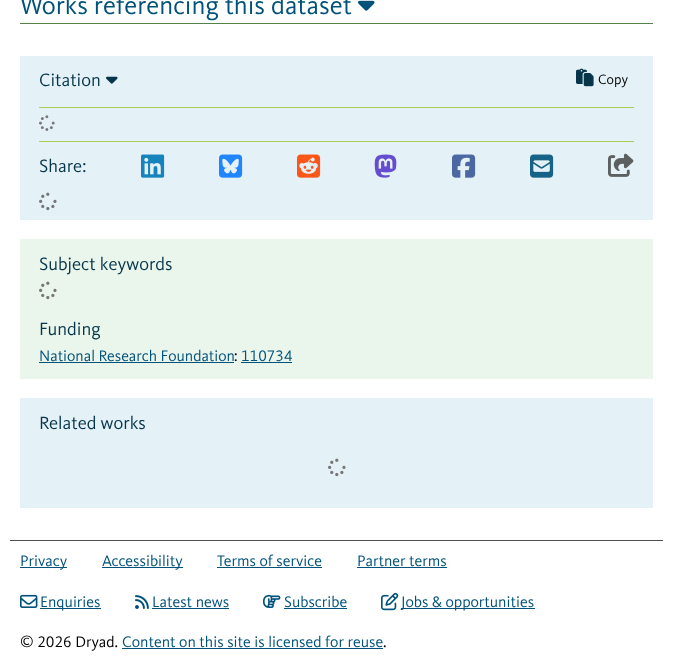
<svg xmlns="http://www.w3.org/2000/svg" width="673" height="656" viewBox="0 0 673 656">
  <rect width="100%" height="100%" fill="rgb(255,255,255)"/>
  <rect x="20" y="23" width="633" height="1" fill="rgb(82,131,70)"/>
  <text x="20" y="14" font-family="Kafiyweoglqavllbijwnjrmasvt" font-size="26.4" fill="rgb(0,82,122)">Works referencing this dataset</text>
  <image x="358" y="0" width="17" height="11" href="pic1.png"/>
  <rect x="20" y="56" width="633" height="164" fill="rgb(228,241,247)"/>
  <text x="39" y="86" font-family="Kafiyweoglqavllbijwnjrmasvt" font-size="18.5" fill="rgb(7,54,75)">Citation</text>
  <image x="106" y="76" width="12" height="8" href="pic2.png"/>
  <image x="576" y="68" width="18" height="19" href="pic3.png"/>
  <text x="598" y="84" font-family="Kafiyweoglqavllbijwnjrmasvt" font-size="14" fill="rgb(0,0,0)">Copy</text>
  <rect x="39" y="107" width="595" height="1" fill="rgb(172,204,84)"/>
  <rect x="39" y="141" width="595" height="1" fill="rgb(172,204,84)"/>
  <image x="39" y="115" width="16" height="16" href="pic4.png"/>
  <text x="39" y="172" font-family="Kafiyweoglqavllbijwnjrmasvt" font-size="18.5" fill="rgb(7,54,75)">Share:</text>
  <image x="141" y="154" width="24" height="24" href="pic5.png"/>
  <image x="219" y="154" width="24" height="24" href="pic6.png"/>
  <image x="297" y="154" width="24" height="24" href="pic7.png"/>
  <image x="374" y="154" width="23" height="24" href="pic8.png"/>
  <image x="452" y="154" width="24" height="24" href="pic9.png"/>
  <image x="530" y="154" width="24" height="24" href="pic10.png"/>
  <image x="608" y="153" width="26" height="24" href="pic11.png"/>
  <image x="39" y="192" width="18" height="19" href="pic12.png"/>
  <rect x="20" y="239" width="633" height="140" fill="rgb(234,245,235)"/>
  <text x="39" y="270" font-family="Kafiyweoglqavllbijwnjrmasvt" font-size="18.5" fill="rgb(7,54,75)">Subject keywords</text>
  <image x="39" y="281" width="18" height="19" href="pic13.png"/>
  <text x="39" y="335" font-family="Kafiyweoglqavllbijwnjrmasvt" font-size="18.5" fill="rgb(7,54,75)">Funding</text>
  <text x="39" y="361" font-family="Kafiyweoglqavllbijwnjrmasvt" font-size="15.75" fill="rgb(0,82,122)">National Research Foundation</text>
  <rect x="39" y="362" width="195" height="1" fill="rgb(0,82,122)"/>
  <text x="234" y="361" font-family="Kafiyweoglqavllbijwnjrmasvt" font-size="15.75" fill="rgb(0,0,0)">:</text>
  <text x="241" y="361" font-family="Kafiyweoglqavllbijwnjrmasvt" font-size="15.75" fill="rgb(0,82,122)">110734</text>
  <rect x="241" y="362" width="51" height="1" fill="rgb(0,82,122)"/>
  <rect x="20" y="398" width="633" height="110" fill="rgb(228,241,247)"/>
  <text x="39" y="429" font-family="Kafiyweoglqavllbijwnjrmasvt" font-size="18.5" fill="rgb(7,54,75)">Related works</text>
  <image x="328" y="458" width="18" height="19" href="pic12.png"/>
  <rect x="10" y="540" width="653" height="1" fill="rgb(78,80,80)"/>
  <rect x="20" y="567" width="47" height="1" fill="rgb(0,82,122)"/>
  <text x="20" y="566" font-family="Kafiyweoglqavllbijwnjrmasvt" font-size="15.8" fill="rgb(0,82,122)">Privacy</text>
  <rect x="102" y="567" width="81" height="1" fill="rgb(0,82,122)"/>
  <g font-family="Kafiyweoglqavllbijwnjrmasvt" font-size="15.8" fill="rgb(0,82,122)">
    <text x="102" y="566">Accessibility</text>
    <text x="217" y="566">Terms of service</text>
  </g>
  <rect x="217" y="567" width="105" height="1" fill="rgb(0,82,122)"/>
  <text x="357" y="566" font-family="Kafiyweoglqavllbijwnjrmasvt" font-size="15.8" fill="rgb(0,82,122)">Partner terms</text>
  <rect x="357" y="567" width="90" height="1" fill="rgb(0,82,122)"/>
  <image x="20" y="594" width="18" height="14" href="pic14.png"/>
  <rect x="40" y="608" width="61" height="1" fill="rgb(0,82,122)"/>
  <text x="40" y="607" font-family="Kafiyweoglqavllbijwnjrmasvt" font-size="15.8" fill="rgb(0,82,122)">Enquiries</text>
  <image x="135" y="595" width="14" height="14" href="pic15.png"/>
  <text x="152" y="607" font-family="Kafiyweoglqavllbijwnjrmasvt" font-size="15.8" fill="rgb(0,82,122)">Latest news</text>
  <rect x="152" y="608" width="77" height="1" fill="rgb(0,82,122)"/>
  <image x="263" y="594" width="18" height="14" href="pic16.png"/>
  <text x="284" y="607" font-family="Kafiyweoglqavllbijwnjrmasvt" font-size="15.8" fill="rgb(0,82,122)">Subscribe</text>
  <rect x="284" y="608" width="63" height="1" fill="rgb(0,82,122)"/>
  <image x="381" y="592" width="18" height="19" href="pic17.png"/>
  <rect x="401" y="608" width="134" height="1" fill="rgb(0,82,122)"/>
  <text x="401" y="607" font-family="Kafiyweoglqavllbijwnjrmasvt" font-size="15.8" fill="rgb(0,82,122)">Jobs &amp; opportunities</text>
  <text x="20" y="647" font-family="Kafiyweoglqavllbijwnjrmasvt" font-size="15.8" fill="rgb(0,0,0)">© 2026 Dryad.</text>
  <text x="122" y="647" font-family="Kafiyweoglqavllbijwnjrmasvt" font-size="15.8" fill="rgb(0,82,122)">Content on this site is licensed for reuse</text>
  <rect x="122" y="648" width="261" height="1" fill="rgb(0,82,122)"/>
  <text x="383" y="647" font-family="Kafiyweoglqavllbijwnjrmasvt" font-size="15.8" fill="rgb(0,0,0)">.</text>
</svg>
